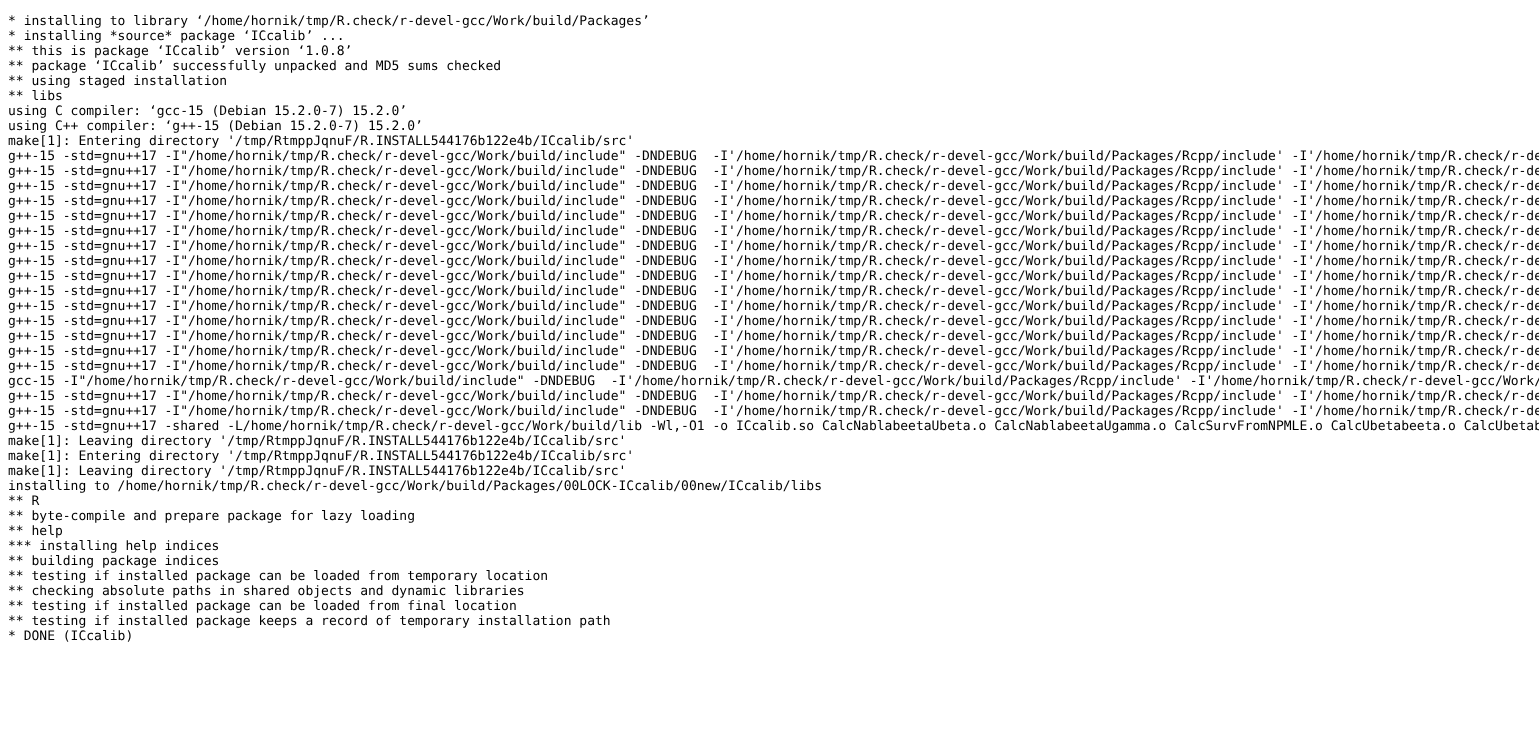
<svg xmlns="http://www.w3.org/2000/svg" width="1539" height="734" viewBox="0 0 1539 734">
  <rect width="100%" height="100%" fill="rgb(255,255,255)"/>
  <g font-family="DejaVu Sans Mono" font-size="13" fill="rgb(0,0,0)">
    <text xml:space="preserve"><tspan x="8" y="25">* installing to library ‘/home/hornik/tmp/R.check/r-devel-gcc/Work/build/Packages’</tspan><tspan x="8" y="40">* installing *source* package ‘ICcalib’ ...</tspan><tspan x="8" y="55">** this is package ‘ICcalib’ version ‘1.0.8’</tspan><tspan x="8" y="70">** package ‘ICcalib’ successfully unpacked and MD5 sums checked</tspan><tspan x="8" y="85">** using staged installation</tspan><tspan x="8" y="100">** libs</tspan><tspan x="8" y="115">using C compiler: ‘gcc-15 (Debian 15.2.0-7) 15.2.0’</tspan><tspan x="8" y="130">using C++ compiler: ‘g++-15 (Debian 15.2.0-7) 15.2.0’</tspan><tspan x="8" y="145">make[1]: Entering directory '/tmp/RtmppJqnuF/R.INSTALL544176b122e4b/ICcalib/src'</tspan><tspan x="8" y="160">g++-15 -std=gnu++17 -I"/home/hornik/tmp/R.check/r-devel-gcc/Work/build/include" -DNDEBUG  -I'/home/hornik/tmp/R.check/r-devel-gcc/Work/build/Packages/Rcpp/include' -I'/home/hornik/tmp/R.check/r-de</tspan><tspan x="8" y="175">g++-15 -std=gnu++17 -I"/home/hornik/tmp/R.check/r-devel-gcc/Work/build/include" -DNDEBUG  -I'/home/hornik/tmp/R.check/r-devel-gcc/Work/build/Packages/Rcpp/include' -I'/home/hornik/tmp/R.check/r-de</tspan><tspan x="8" y="190">g++-15 -std=gnu++17 -I"/home/hornik/tmp/R.check/r-devel-gcc/Work/build/include" -DNDEBUG  -I'/home/hornik/tmp/R.check/r-devel-gcc/Work/build/Packages/Rcpp/include' -I'/home/hornik/tmp/R.check/r-de</tspan><tspan x="8" y="205">g++-15 -std=gnu++17 -I"/home/hornik/tmp/R.check/r-devel-gcc/Work/build/include" -DNDEBUG  -I'/home/hornik/tmp/R.check/r-devel-gcc/Work/build/Packages/Rcpp/include' -I'/home/hornik/tmp/R.check/r-de</tspan><tspan x="8" y="220">g++-15 -std=gnu++17 -I"/home/hornik/tmp/R.check/r-devel-gcc/Work/build/include" -DNDEBUG  -I'/home/hornik/tmp/R.check/r-devel-gcc/Work/build/Packages/Rcpp/include' -I'/home/hornik/tmp/R.check/r-de</tspan><tspan x="8" y="235">g++-15 -std=gnu++17 -I"/home/hornik/tmp/R.check/r-devel-gcc/Work/build/include" -DNDEBUG  -I'/home/hornik/tmp/R.check/r-devel-gcc/Work/build/Packages/Rcpp/include' -I'/home/hornik/tmp/R.check/r-de</tspan><tspan x="8" y="250">g++-15 -std=gnu++17 -I"/home/hornik/tmp/R.check/r-devel-gcc/Work/build/include" -DNDEBUG  -I'/home/hornik/tmp/R.check/r-devel-gcc/Work/build/Packages/Rcpp/include' -I'/home/hornik/tmp/R.check/r-de</tspan><tspan x="8" y="265">g++-15 -std=gnu++17 -I"/home/hornik/tmp/R.check/r-devel-gcc/Work/build/include" -DNDEBUG  -I'/home/hornik/tmp/R.check/r-devel-gcc/Work/build/Packages/Rcpp/include' -I'/home/hornik/tmp/R.check/r-de</tspan><tspan x="8" y="280">g++-15 -std=gnu++17 -I"/home/hornik/tmp/R.check/r-devel-gcc/Work/build/include" -DNDEBUG  -I'/home/hornik/tmp/R.check/r-devel-gcc/Work/build/Packages/Rcpp/include' -I'/home/hornik/tmp/R.check/r-de</tspan><tspan x="8" y="295">g++-15 -std=gnu++17 -I"/home/hornik/tmp/R.check/r-devel-gcc/Work/build/include" -DNDEBUG  -I'/home/hornik/tmp/R.check/r-devel-gcc/Work/build/Packages/Rcpp/include' -I'/home/hornik/tmp/R.check/r-de</tspan><tspan x="8" y="310">g++-15 -std=gnu++17 -I"/home/hornik/tmp/R.check/r-devel-gcc/Work/build/include" -DNDEBUG  -I'/home/hornik/tmp/R.check/r-devel-gcc/Work/build/Packages/Rcpp/include' -I'/home/hornik/tmp/R.check/r-de</tspan><tspan x="8" y="325">g++-15 -std=gnu++17 -I"/home/hornik/tmp/R.check/r-devel-gcc/Work/build/include" -DNDEBUG  -I'/home/hornik/tmp/R.check/r-devel-gcc/Work/build/Packages/Rcpp/include' -I'/home/hornik/tmp/R.check/r-de</tspan><tspan x="8" y="340">g++-15 -std=gnu++17 -I"/home/hornik/tmp/R.check/r-devel-gcc/Work/build/include" -DNDEBUG  -I'/home/hornik/tmp/R.check/r-devel-gcc/Work/build/Packages/Rcpp/include' -I'/home/hornik/tmp/R.check/r-de</tspan><tspan x="8" y="355">g++-15 -std=gnu++17 -I"/home/hornik/tmp/R.check/r-devel-gcc/Work/build/include" -DNDEBUG  -I'/home/hornik/tmp/R.check/r-devel-gcc/Work/build/Packages/Rcpp/include' -I'/home/hornik/tmp/R.check/r-de</tspan><tspan x="8" y="370">g++-15 -std=gnu++17 -I"/home/hornik/tmp/R.check/r-devel-gcc/Work/build/include" -DNDEBUG  -I'/home/hornik/tmp/R.check/r-devel-gcc/Work/build/Packages/Rcpp/include' -I'/home/hornik/tmp/R.check/r-de</tspan><tspan x="8" y="385">gcc-15 -I"/home/hornik/tmp/R.check/r-devel-gcc/Work/build/include" -DNDEBUG  -I'/home/hornik/tmp/R.check/r-devel-gcc/Work/build/Packages/Rcpp/include' -I'/home/hornik/tmp/R.check/r-devel-gcc/Work/</tspan><tspan x="8" y="400">g++-15 -std=gnu++17 -I"/home/hornik/tmp/R.check/r-devel-gcc/Work/build/include" -DNDEBUG  -I'/home/hornik/tmp/R.check/r-devel-gcc/Work/build/Packages/Rcpp/include' -I'/home/hornik/tmp/R.check/r-de</tspan><tspan x="8" y="415">g++-15 -std=gnu++17 -I"/home/hornik/tmp/R.check/r-devel-gcc/Work/build/include" -DNDEBUG  -I'/home/hornik/tmp/R.check/r-devel-gcc/Work/build/Packages/Rcpp/include' -I'/home/hornik/tmp/R.check/r-de</tspan><tspan x="8" y="430">g++-15 -std=gnu++17 -shared -L/home/hornik/tmp/R.check/r-devel-gcc/Work/build/lib -Wl,-O1 -o ICcalib.so CalcNablabeetaUbeta.o CalcNablabeetaUgamma.o CalcSurvFromNPMLE.o CalcUbetabeeta.o CalcUbetab</tspan><tspan x="8" y="445">make[1]: Leaving directory '/tmp/RtmppJqnuF/R.INSTALL544176b122e4b/ICcalib/src'</tspan><tspan x="8" y="460">make[1]: Entering directory '/tmp/RtmppJqnuF/R.INSTALL544176b122e4b/ICcalib/src'</tspan><tspan x="8" y="475">make[1]: Leaving directory '/tmp/RtmppJqnuF/R.INSTALL544176b122e4b/ICcalib/src'</tspan><tspan x="8" y="490">installing to /home/hornik/tmp/R.check/r-devel-gcc/Work/build/Packages/00LOCK-ICcalib/00new/ICcalib/libs</tspan><tspan x="8" y="505">** R</tspan><tspan x="8" y="520">** byte-compile and prepare package for lazy loading</tspan><tspan x="8" y="535">** help</tspan><tspan x="8" y="550">*** installing help indices</tspan><tspan x="8" y="565">** building package indices</tspan><tspan x="8" y="580">** testing if installed package can be loaded from temporary location</tspan><tspan x="8" y="595">** checking absolute paths in shared objects and dynamic libraries</tspan><tspan x="8" y="610">** testing if installed package can be loaded from final location</tspan><tspan x="8" y="625">** testing if installed package keeps a record of temporary installation path</tspan><tspan x="8" y="640">* DONE (ICcalib)</tspan></text>
  </g>
</svg>
